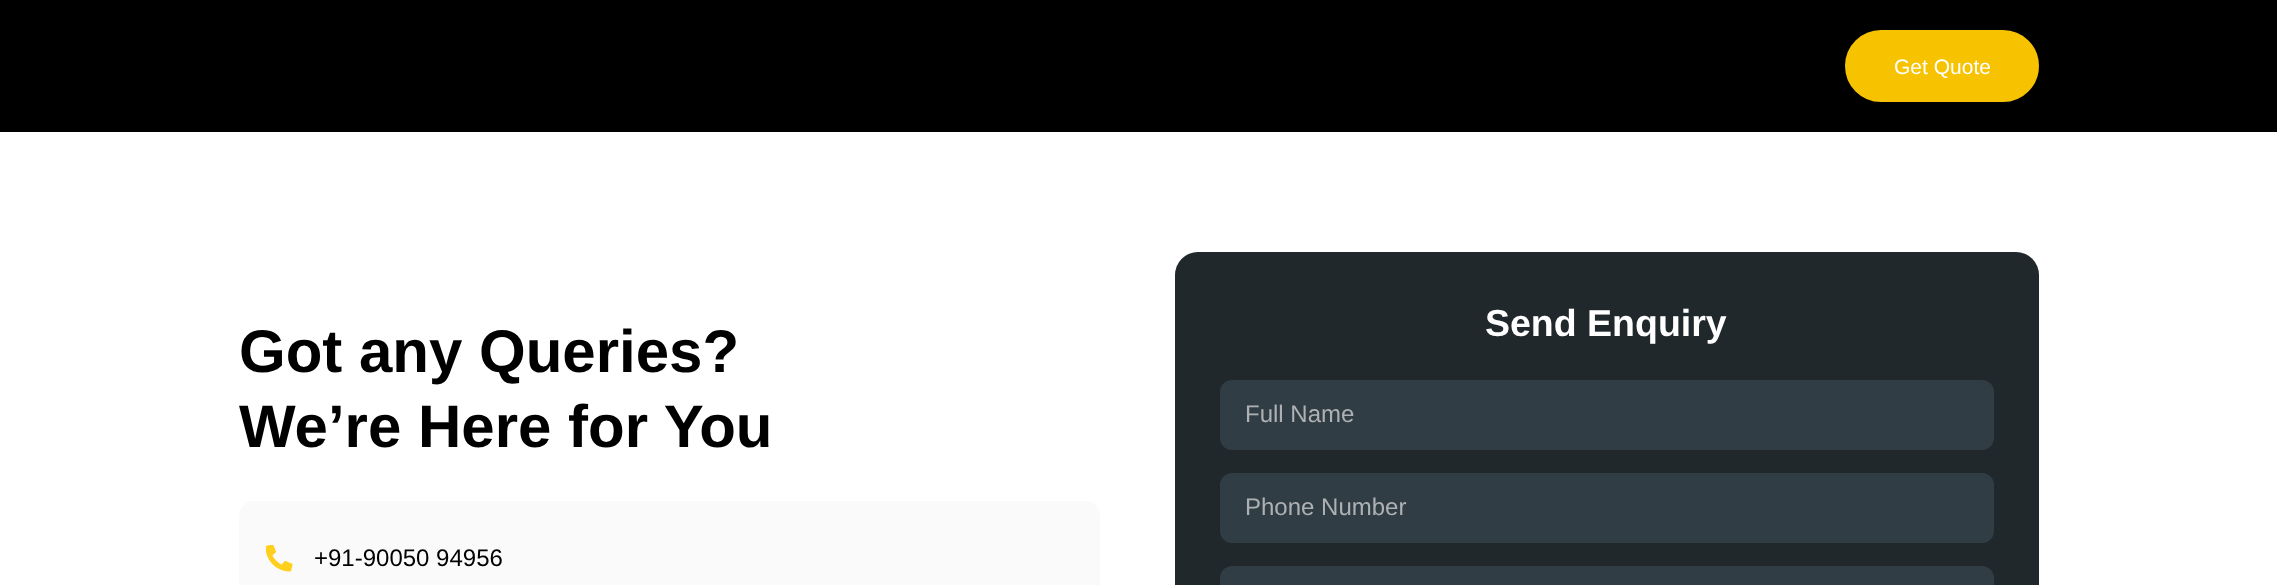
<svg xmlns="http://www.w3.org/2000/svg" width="2277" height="585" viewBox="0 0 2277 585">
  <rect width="100%" height="100%" fill="rgb(255,255,255)"/>
  <rect x="0" y="0" width="2277" height="132" fill="rgb(0,0,0)"/>
  <rect x="1846.5" y="31.5" width="191" height="69" rx="34.5" fill="rgb(247,194,0)" stroke="rgb(247,194,0)" stroke-width="3"/>
  <text x="1894" y="74" font-family="Liberation Sans" font-size="21" fill="rgb(255,255,255)">Get Quote</text>
  <g font-family="Liberation Sans" font-size="60" font-weight="bold" fill="rgb(0,0,0)">
    <text>
      <tspan x="239" y="372">Got any Queries?</tspan>
      <tspan x="239" y="447">We’re Here for You</tspan>
    </text>
  </g>
  <rect x="239" y="501" width="861" height="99" rx="15" fill="rgb(250,250,250)"/>
  <image x="266" y="545" width="27" height="27" href="pic1.png"/>
  <text x="314" y="566" font-family="Liberation Sans" font-size="24" fill="rgb(0,0,0)">+91-90050 94956</text>
  <rect x="1175" y="252" width="864" height="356" rx="23" fill="rgb(32,40,44)"/>
  <text x="1485" y="336" font-family="Liberation Sans" font-size="37.5" font-weight="bold" fill="rgb(255,255,255)">Send Enquiry</text>
  <rect x="1221" y="381" width="772" height="68" rx="11" fill="rgb(49,61,68)" stroke="rgb(49,61,68)" stroke-width="2"/>
  <text x="1245" y="422" font-family="Liberation Sans" font-size="24" fill="rgb(173,177,180)">Full Name</text>
  <rect x="1221" y="474" width="772" height="68" rx="11" fill="rgb(49,61,68)" stroke="rgb(49,61,68)" stroke-width="2"/>
  <text x="1245" y="515" font-family="Liberation Sans" font-size="24" fill="rgb(173,177,180)">Phone Number</text>
  <rect x="1221" y="567" width="772" height="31" rx="11" fill="rgb(49,61,68)" stroke="rgb(49,61,68)" stroke-width="2"/>
</svg>
